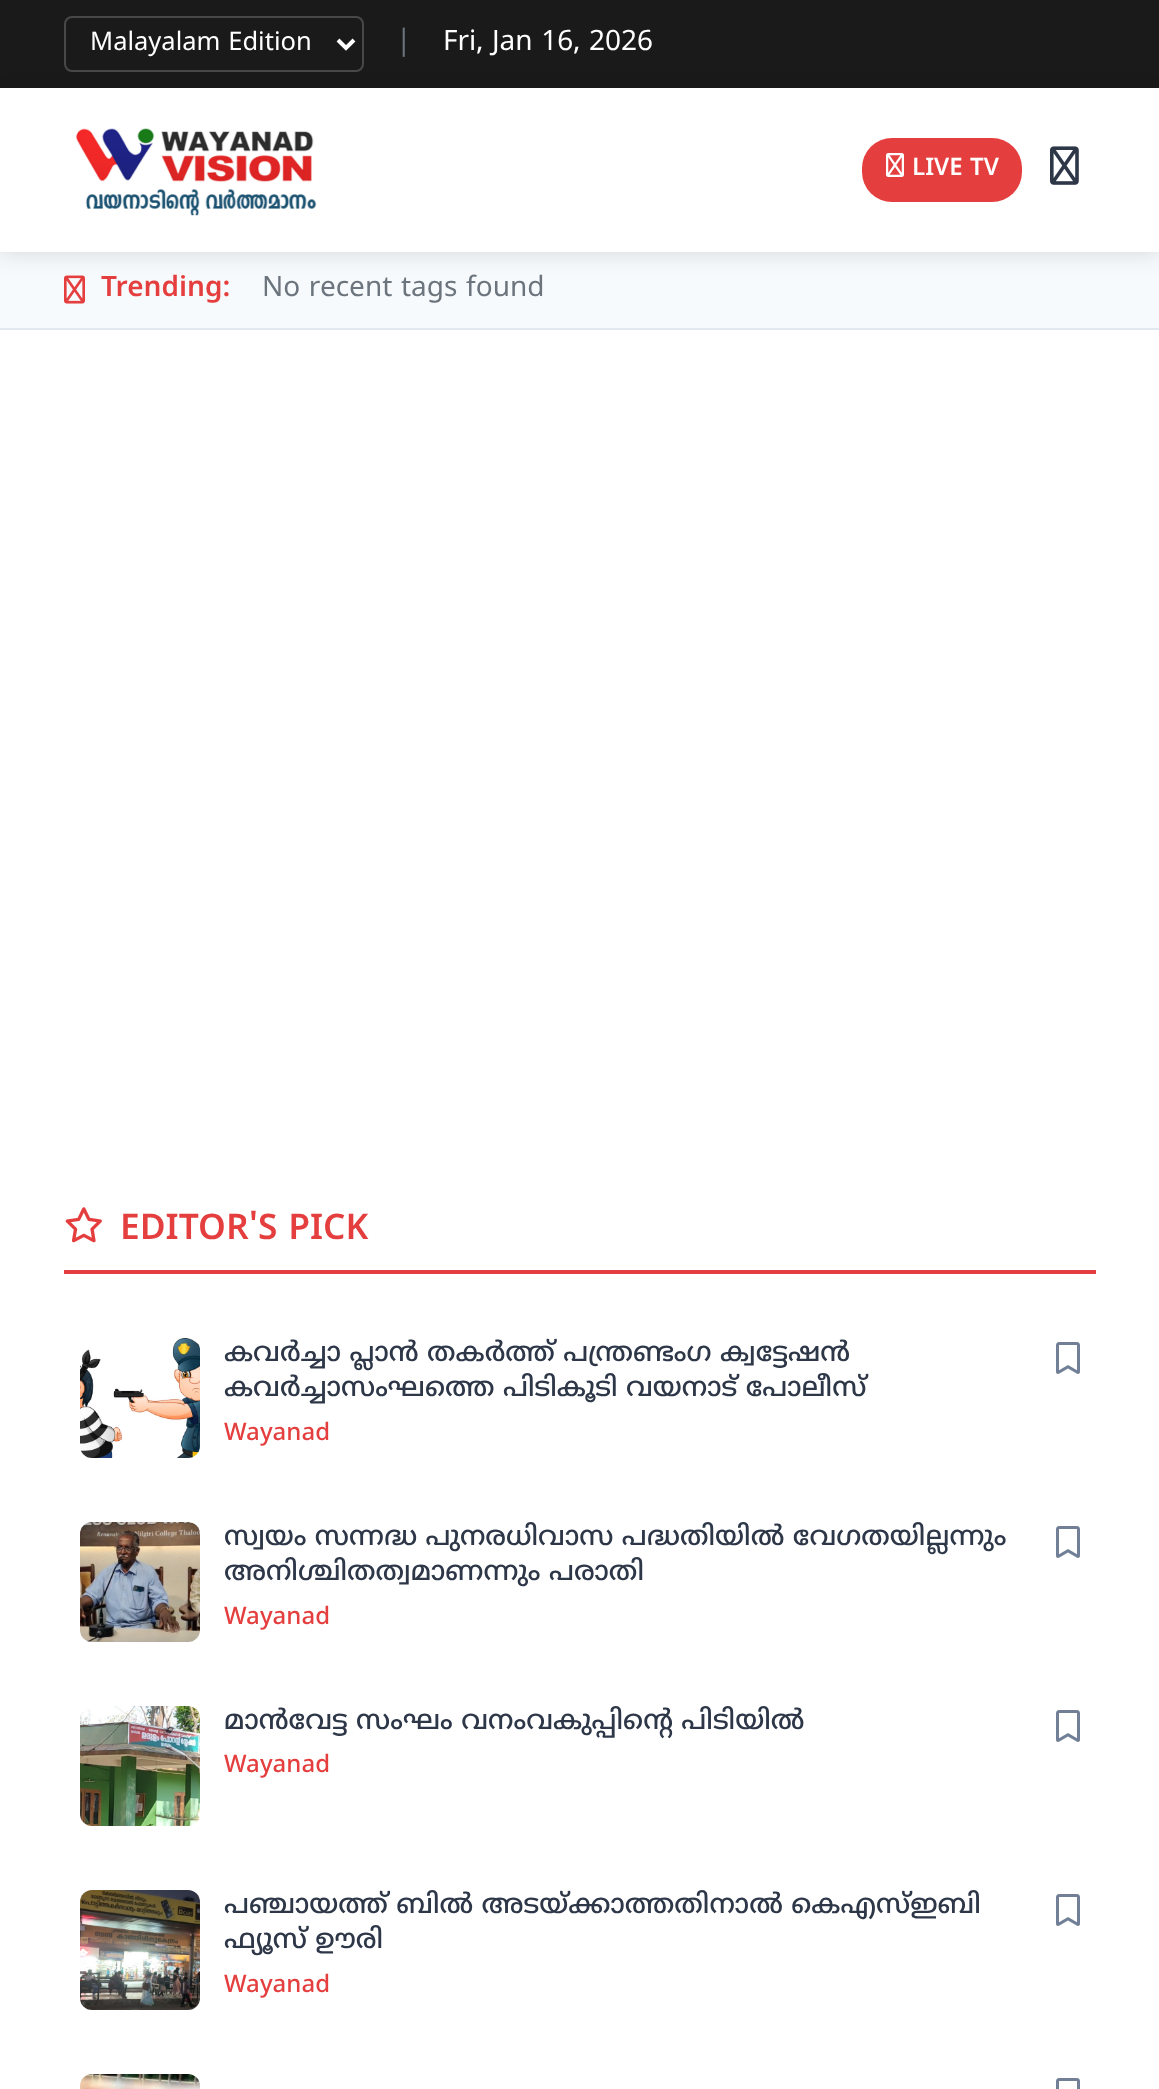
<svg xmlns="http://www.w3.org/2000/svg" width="1159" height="2089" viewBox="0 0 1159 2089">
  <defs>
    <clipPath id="clip1"><path d="M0 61H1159V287H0ZM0 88H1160V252H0Z" clip-rule="evenodd"/></clipPath>
  </defs>
  <rect width="100%" height="100%" fill="rgb(255,255,255)"/>
  <rect x="0" y="0" width="1159" height="88" fill="rgb(26,26,26)"/>
  <rect x="65" y="17" width="298" height="54" rx="7" fill="none" stroke="rgb(72,72,72)" stroke-width="2"/>
  <path d="M338 40L346 48L354 40" fill="none" stroke="rgb(255,255,255)" stroke-width="4"/>
  <text x="90" y="50" font-family="Noto Sans Malayalam" font-size="25.5" fill="rgb(255,255,255)">Malayalam Edition</text>
  <text x="396" y="50" font-family="Noto Sans Malayalam" font-size="28" fill="rgb(108,117,125)">|</text>
  <text x="443" y="50" font-family="Noto Sans Malayalam" font-size="28" fill="rgb(255,255,255)">Fri, Jan 16, 2026</text>
  <rect x="0" y="252" width="1159" height="76" fill="rgb(247,250,252)"/>
  <image x="64" y="275" width="21" height="29" href="pic4.png"/>
  <g clip-path="url(#clip1)">
    <rect x="0" y="92" width="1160" height="164" fill="rgba(0,0,0,0.1)" filter="blur(10px)"/>
  </g>
  <image x="75" y="128" width="242" height="88" href="pic1.png"/>
  <rect x="862" y="138" width="160" height="64" rx="30" fill="rgb(229,62,62)"/>
  <image x="886" y="153" width="18" height="24" href="pic2.png"/>
  <text x="912" y="175" font-family="Noto Sans Malayalam" font-size="24" font-weight="600" fill="rgb(255,255,255)">LIVE TV</text>
  <image x="1050" y="146" width="29" height="39" href="pic3.png"/>
  <rect x="0" y="328" width="1159" height="2" fill="rgb(226,232,240)"/>
  <text x="101" y="296" font-family="Noto Sans Malayalam" font-size="28" font-weight="600" fill="rgb(229,62,62)">Trending:</text>
  <text x="262" y="296" font-family="Noto Sans Malayalam" font-size="28" fill="rgb(108,117,125)">No recent tags found</text>
  <rect x="64" y="1270" width="1032" height="4" fill="rgb(229,62,62)"/>
  <image x="65" y="1207" width="37" height="36" href="pic5.png"/>
  <text x="120" y="1239" font-family="Noto Sans Malayalam" font-size="35.25" font-weight="600" fill="rgb(229,62,62)">EDITOR'S PICK</text>
  <image x="80" y="1338" width="120" height="120" href="pic6.png"/>
  <g font-family="Noto Sans Malayalam" font-size="27.2" font-weight="500" fill="rgb(45,55,72)">
    <text>
      <tspan x="224" y="1361">കവര്‍ച്ചാ പ്ലാന്‍ തകര്‍ത്ത് പന്ത്രണ്ടംഗ ക്വട്ടേഷന്‍</tspan>
      <tspan x="224" y="1396">കവര്‍ച്ചാസംഘത്തെ പിടികൂടി വയനാട് പോലീസ്</tspan>
    </text>
  </g>
  <text x="224" y="1440" font-family="Noto Sans Malayalam" font-size="24" font-weight="500" fill="rgb(229,62,62)">Wayanad</text>
  <image x="1056" y="1342" width="24" height="32" href="pic7.png"/>
  <image x="80" y="1522" width="120" height="120" href="pic8.png"/>
  <g font-family="Noto Sans Malayalam" font-size="27.2" font-weight="500" fill="rgb(45,55,72)">
    <text>
      <tspan x="224" y="1545">സ്വയം സന്നദ്ധ പുനരധിവാസ പദ്ധതിയില്‍ വേഗതയില്ലന്നും</tspan>
      <tspan x="224" y="1580">അനിശ്ചിതത്വമാണന്നും പരാതി</tspan>
    </text>
  </g>
  <text x="224" y="1624" font-family="Noto Sans Malayalam" font-size="24" font-weight="500" fill="rgb(229,62,62)">Wayanad</text>
  <image x="1056" y="1526" width="24" height="32" href="pic7.png"/>
  <image x="80" y="1706" width="120" height="120" href="pic9.png"/>
  <text x="224" y="1729" font-family="Noto Sans Malayalam" font-size="27.2" font-weight="500" fill="rgb(45,55,72)">മാന്‍വേട്ട സംഘം വനംവകുപ്പിന്റെ പിടിയില്‍</text>
  <text x="224" y="1772" font-family="Noto Sans Malayalam" font-size="24" font-weight="500" fill="rgb(229,62,62)">Wayanad</text>
  <image x="1056" y="1710" width="24" height="32" href="pic7.png"/>
  <image x="80" y="1890" width="120" height="120" href="pic10.png"/>
  <g font-family="Noto Sans Malayalam" font-size="27.2" font-weight="500" fill="rgb(45,55,72)">
    <text>
      <tspan x="224" y="1913">പഞ്ചായത്ത് ബില്‍ അടയ്ക്കാത്തതിനാല്‍ കെഎസ്ഇബി</tspan>
      <tspan x="224" y="1948">ഫ്യൂസ് ഊരി</tspan>
    </text>
  </g>
  <text x="224" y="1992" font-family="Noto Sans Malayalam" font-size="24" font-weight="500" fill="rgb(229,62,62)">Wayanad</text>
  <image x="1056" y="1894" width="24" height="32" href="pic7.png"/>
  <image x="80" y="2074" width="120" height="15" href="pic11.png"/>
  <image x="1056" y="2078" width="24" height="11" href="pic12.png"/>
</svg>
